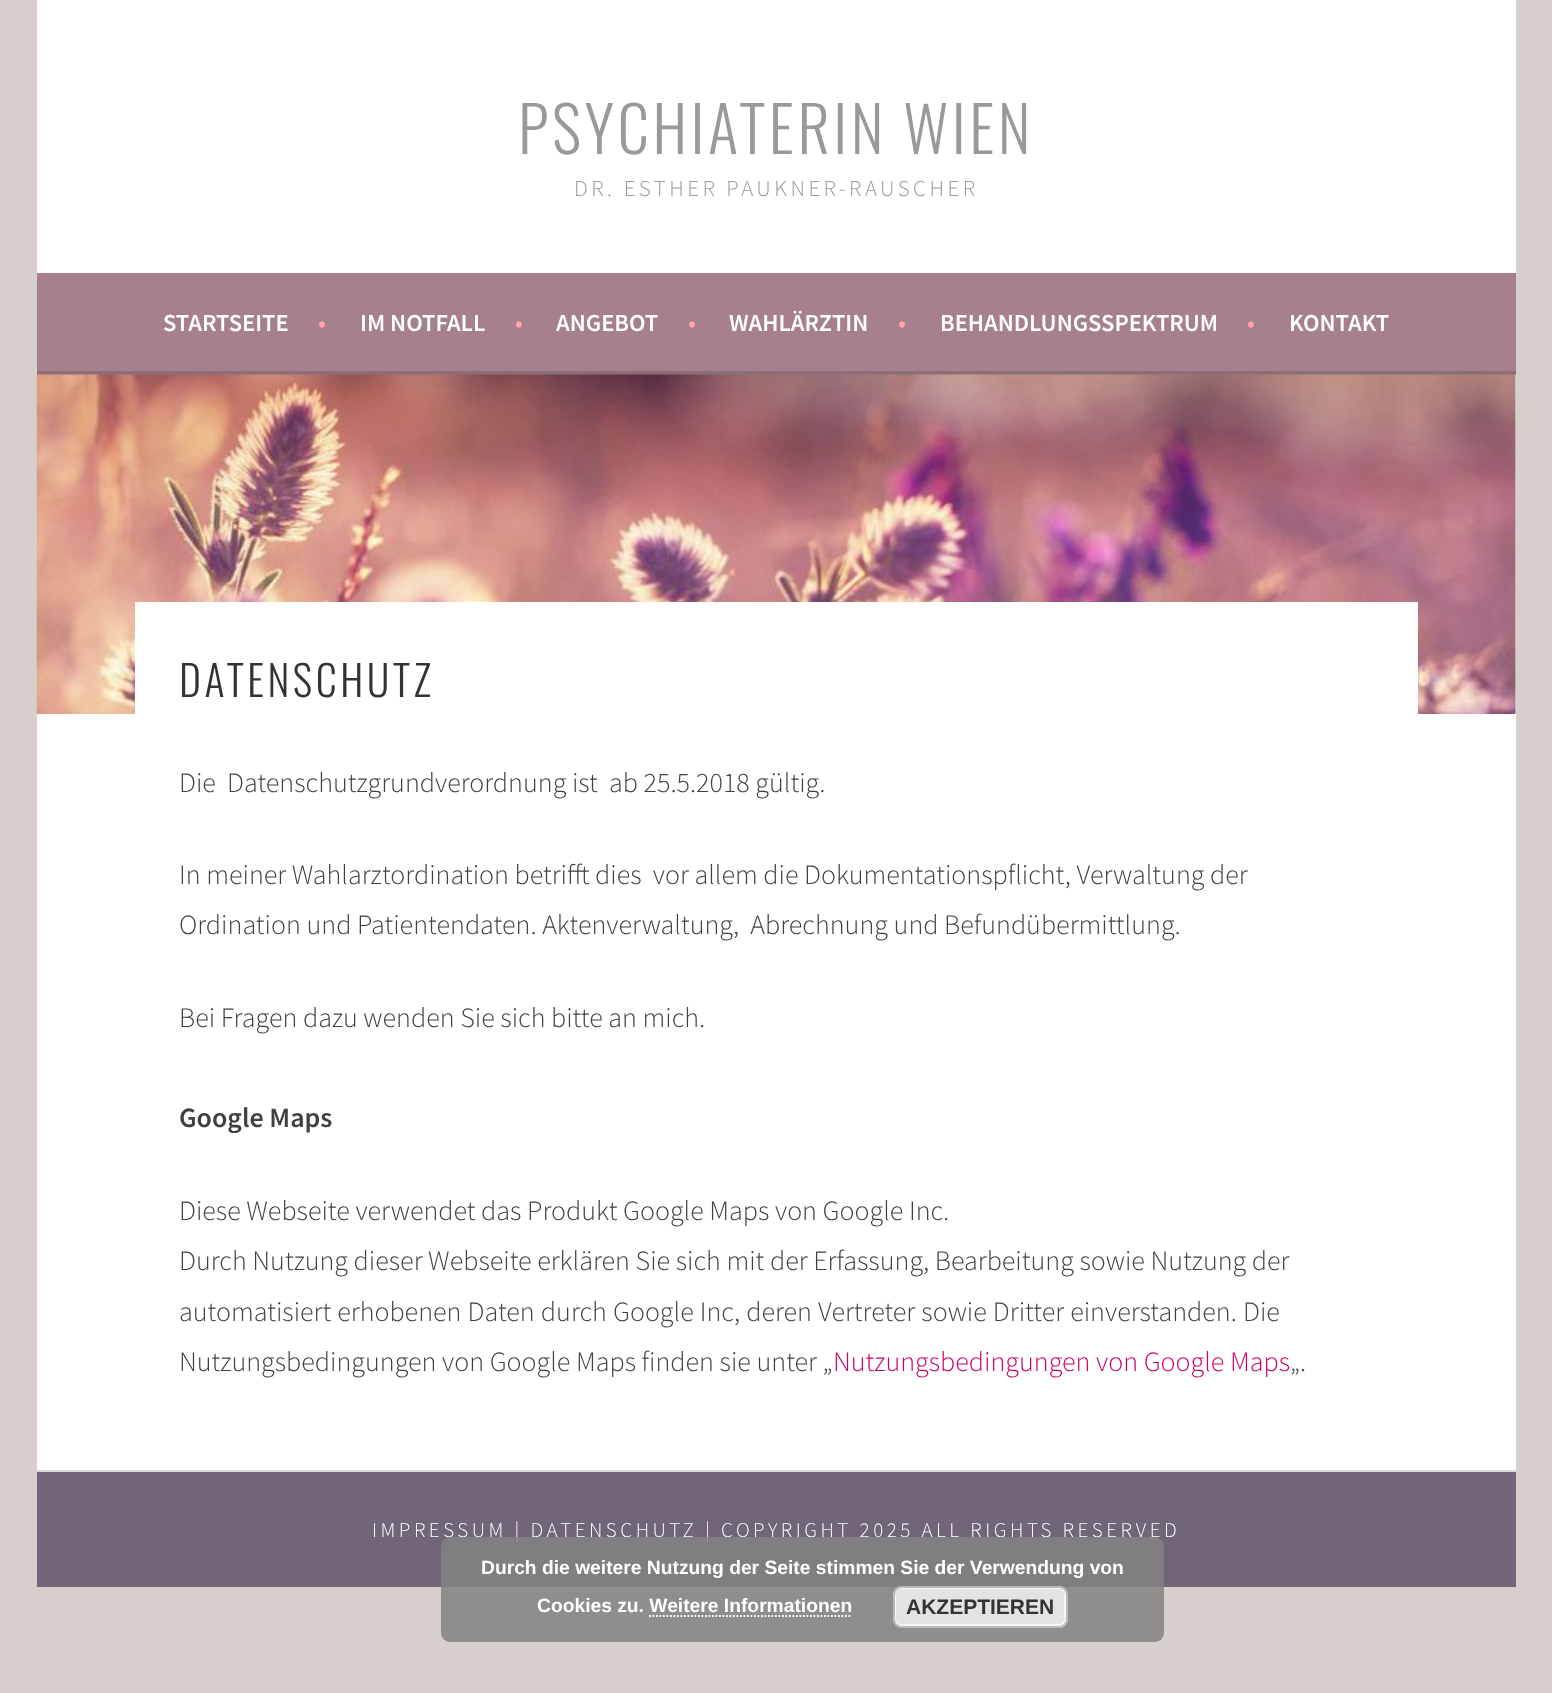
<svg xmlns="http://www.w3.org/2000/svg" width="1552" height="1693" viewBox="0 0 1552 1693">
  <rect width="100%" height="100%" fill="rgb(214,207,203)"/>
  <rect x="37" y="0" width="1479" height="273" fill="rgb(255,255,255)"/>
  <text x="518" y="154" font-family="Oswald" font-size="63" font-weight="300" letter-spacing="3.5" fill="rgb(153,153,153)">PSYCHIATERIN WIEN</text>
  <text x="574" y="196" font-family="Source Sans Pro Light" font-size="22.75" font-weight="300" letter-spacing="3.5" fill="rgb(153,153,153)">DR. ESTHER PAUKNER-RAUSCHER</text>
  <rect x="37" y="273" width="1479" height="98" fill="rgb(166,128,140)"/>
  <rect x="37" y="371" width="1479" height="4" fill="rgb(141,109,119)"/>
  <text x="163" y="331" font-family="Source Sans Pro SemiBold" font-size="24.5" font-weight="600" fill="rgb(255,255,255)">STARTSEITE</text>
  <text x="318" y="331" font-family="Source Sans Pro SemiBold" font-size="24.5" font-weight="600" fill="rgb(255,164,173)">•</text>
  <text x="360" y="331" font-family="Source Sans Pro SemiBold" font-size="24.5" font-weight="600" fill="rgb(255,255,255)">IM NOTFALL</text>
  <text x="515" y="331" font-family="Source Sans Pro SemiBold" font-size="24.5" font-weight="600" fill="rgb(255,164,173)">•</text>
  <text x="556" y="331" font-family="Source Sans Pro SemiBold" font-size="24.5" font-weight="600" fill="rgb(255,255,255)">ANGEBOT</text>
  <text x="688" y="331" font-family="Source Sans Pro SemiBold" font-size="24.5" font-weight="600" fill="rgb(255,164,173)">•</text>
  <text x="729" y="331" font-family="Source Sans Pro SemiBold" font-size="24.5" font-weight="600" fill="rgb(255,255,255)">WAHLÄRZTIN</text>
  <text x="898" y="331" font-family="Source Sans Pro SemiBold" font-size="24.5" font-weight="600" fill="rgb(255,164,173)">•</text>
  <text x="940" y="331" font-family="Source Sans Pro SemiBold" font-size="24.5" font-weight="600" fill="rgb(255,255,255)">BEHANDLUNGSSPEKTRUM</text>
  <text x="1247" y="331" font-family="Source Sans Pro SemiBold" font-size="24.5" font-weight="600" fill="rgb(255,164,173)">•</text>
  <text x="1289" y="331" font-family="Source Sans Pro SemiBold" font-size="24.5" font-weight="600" fill="rgb(255,255,255)">KONTAKT</text>
  <rect x="37" y="714" width="1479" height="756" fill="rgb(255,255,255)"/>
  <rect x="1515" y="375" width="1" height="339" fill="rgb(248,249,248)"/>
  <image x="36" y="374" width="1480" height="340" href="pic1.png"/>
  <rect x="135" y="602" width="1283" height="112" fill="rgb(255,255,255)"/>
  <text x="179" y="697" font-family="Oswald" font-size="42" font-weight="300" letter-spacing="3.5" fill="rgb(51,51,51)">DATENSCHUTZ</text>
  <g font-family="Source Sans Pro Light" font-size="28" font-weight="300" fill="rgb(64,64,64)">
    <text x="179" y="792" xml:space="preserve">Die  Datenschutzgrundverordnung ist  ab 25.5.2018 gültig.</text>
    <text xml:space="preserve"><tspan x="179" y="884">In meiner Wahlarztordination betrifft dies  vor allem die Dokumentationspflicht, Verwaltung der</tspan><tspan x="179" y="934">Ordination und Patientendaten. Aktenverwaltung,  Abrechnung und Befundübermittlung.</tspan></text>
    <text x="179" y="1027">Bei Fragen dazu wenden Sie sich bitte an mich.</text>
  </g>
  <text x="179" y="1127" font-family="Source Sans Pro SemiBold" font-size="28" font-weight="600" fill="rgb(64,64,64)">Google Maps</text>
  <g font-family="Source Sans Pro Light" font-size="28" font-weight="300" fill="rgb(64,64,64)">
    <text>
      <tspan x="179" y="1220">Diese Webseite verwendet das Produkt Google Maps von Google Inc.</tspan>
      <tspan x="179" y="1270">Durch Nutzung dieser Webseite erklären Sie sich mit der Erfassung, Bearbeitung sowie Nutzung der</tspan>
      <tspan x="179" y="1321" word-spacing="0.5">automatisiert erhobenen Daten durch Google Inc, deren Vertreter sowie Dritter einverstanden. Die</tspan>
      <tspan x="179" y="1371">Nutzungsbedingungen von Google Maps finden sie unter „</tspan>
    </text>
  </g>
  <text x="833" y="1371" font-family="Source Sans Pro Light" font-size="28" font-weight="300" fill="rgb(204,0,102)">Nutzungsbedingungen von Google Maps</text>
  <text x="1290" y="1371" font-family="Source Sans Pro Light" font-size="28" font-weight="300" fill="rgb(64,64,64)">„.</text>
  <rect x="37" y="1472" width="1479" height="115" fill="rgb(112,102,119)"/>
  <rect x="37" y="1470" width="1479" height="2" fill="rgb(217,217,217)"/>
  <text x="372" y="1537" font-family="Source Sans Pro Light" font-size="21" font-weight="300" letter-spacing="3.5" fill="rgb(255,255,255)">IMPRESSUM | DATENSCHUTZ | COPYRIGHT 2025 ALL RIGHTS RESERVED</text>
  <rect x="441" y="1537" width="723" height="105" rx="9" fill="rgba(130,130,130,0.85)"/>
  <g font-family="Liberation Sans" font-size="19.25" font-weight="bold" fill="rgb(255,255,255)">
    <text x="481" y="1574">Durch die weitere Nutzung der Seite stimmen Sie der Verwendung von</text>
    <text x="537" y="1612">Cookies zu. Weitere Informationen</text>
  </g>
  <rect x="893" y="1586" width="175" height="42" rx="9" fill="rgb(227,227,227)"/>
  <rect x="895" y="1588" width="170" height="37" rx="6" fill="none" stroke="rgb(246,246,246)" stroke-width="2"/>
  <rect x="894" y="1587" width="173" height="40" rx="8" fill="none" stroke="rgb(187,187,187)" stroke-width="2"/>
  <text x="906" y="1614" font-family="Liberation Sans" font-size="21" font-weight="bold" fill="rgb(51,51,51)">AKZEPTIEREN</text>
  <path d="M649 1616H852" fill="none" stroke="rgb(255,255,255)" stroke-width="1.8" stroke-dasharray="1.75 1.75"/>
</svg>
